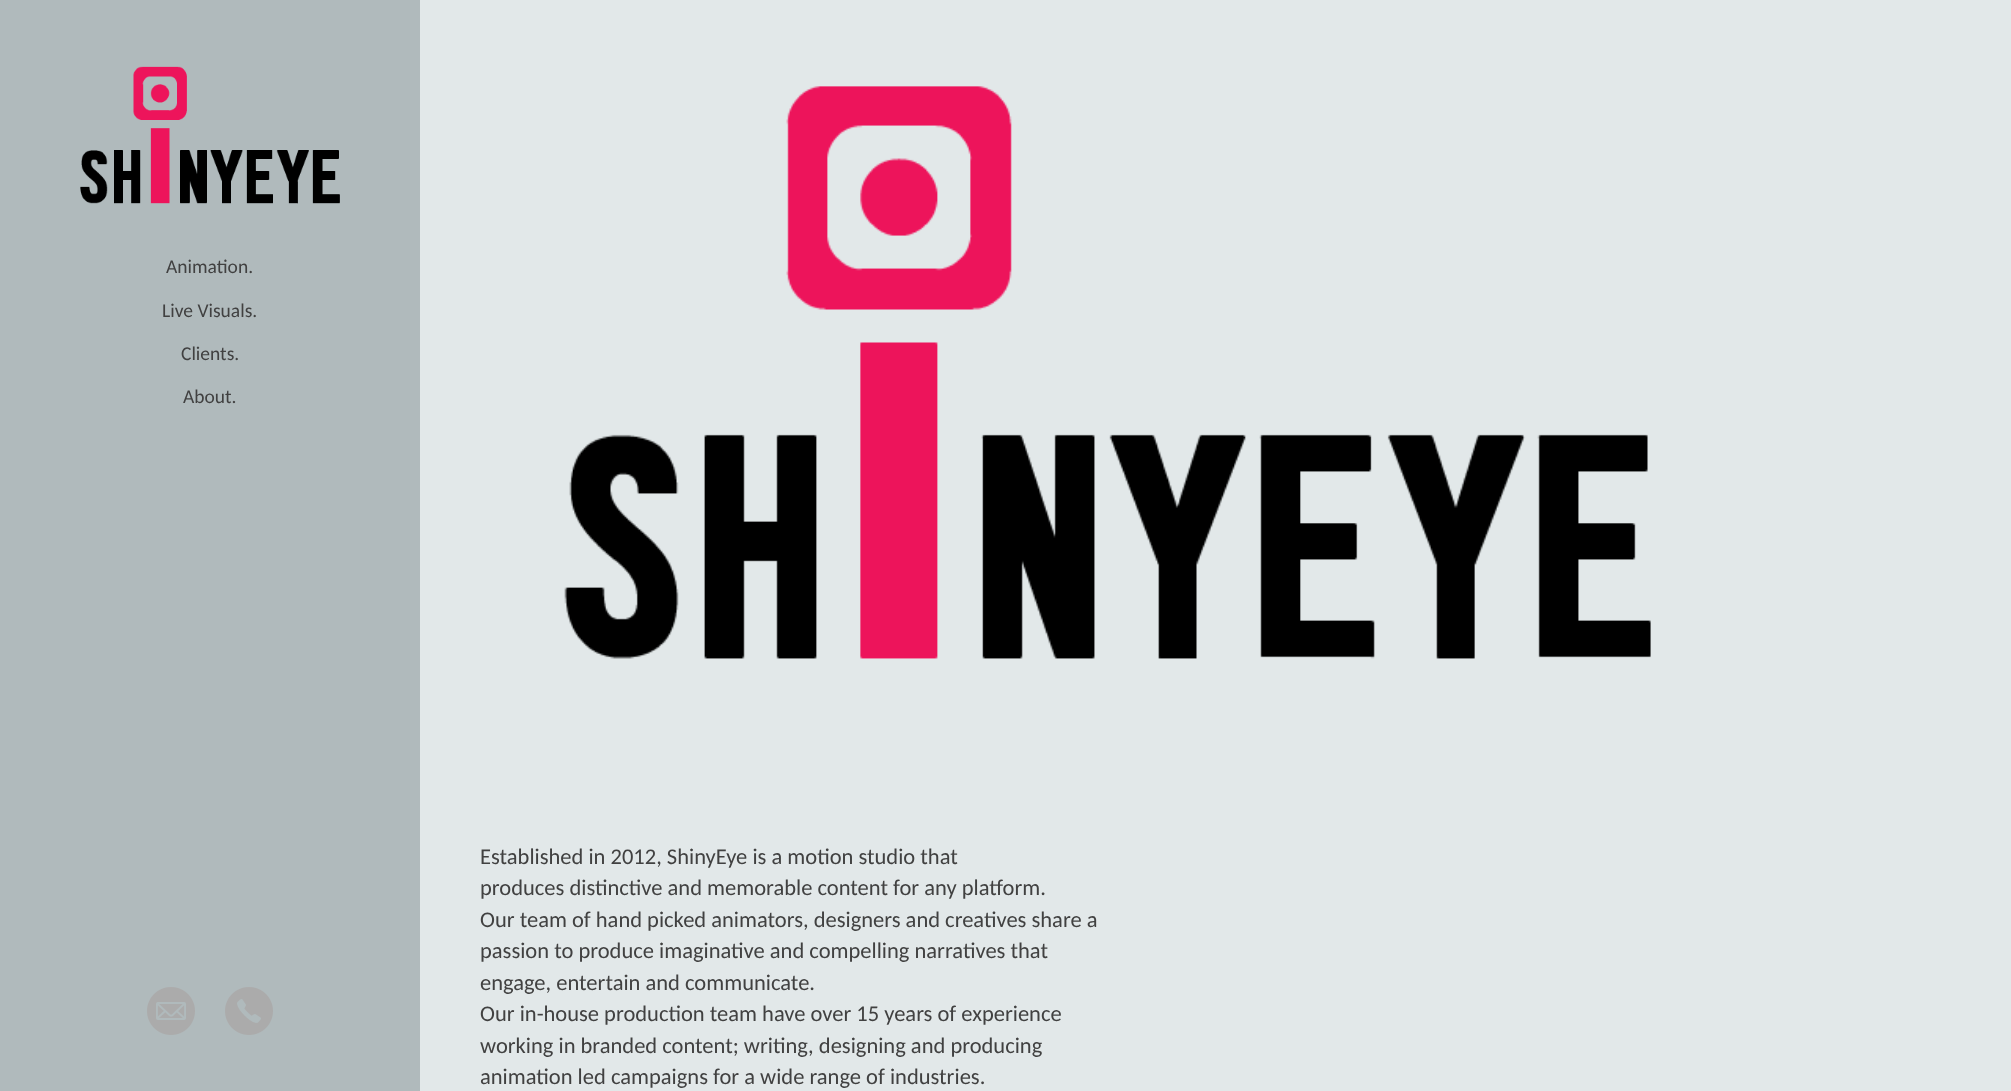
<svg xmlns="http://www.w3.org/2000/svg" width="2011" height="1091" viewBox="0 0 2011 1091">
  <rect width="100%" height="100%" fill="rgb(226,232,233)"/>
  <rect x="0" y="0" width="420" height="1091" fill="rgb(176,186,188)"/>
  <image x="80" y="66" width="260" height="138" href="pic1.png"/>
  <g font-family="Carlito" font-size="19.5" fill="rgb(65,65,65)">
    <text x="166" y="273">Animation.</text>
    <text x="162" y="317">Live Visuals.</text>
    <text x="181" y="360">Clients.</text>
    <text x="183" y="403">About.</text>
  </g>
  <image x="147" y="987" width="48" height="48" href="pic2.png"/>
  <image x="225" y="987" width="48" height="48" href="pic3.png"/>
  <image x="564" y="86" width="1087" height="573" href="pic4.png"/>
  <g font-family="Carlito" font-size="22.5" fill="rgb(65,65,65)">
    <text>
      <tspan x="480" y="864">Established in 2012, ShinyEye is a motion studio that</tspan>
      <tspan x="480" y="895">produces distinctive and memorable content for any platform.</tspan>
      <tspan x="480" y="927">Our team of hand picked animators, designers and creatives share a</tspan>
      <tspan x="480" y="958">passion to produce imaginative and compelling narratives that</tspan>
      <tspan x="480" y="990">engage, entertain and communicate.</tspan>
      <tspan x="480" y="1021">Our in-house production team have over 15 years of experience</tspan>
      <tspan x="480" y="1053">working in branded content; writing, designing and producing</tspan>
      <tspan x="480" y="1084">animation led campaigns for a wide range of industries.</tspan>
    </text>
  </g>
</svg>
